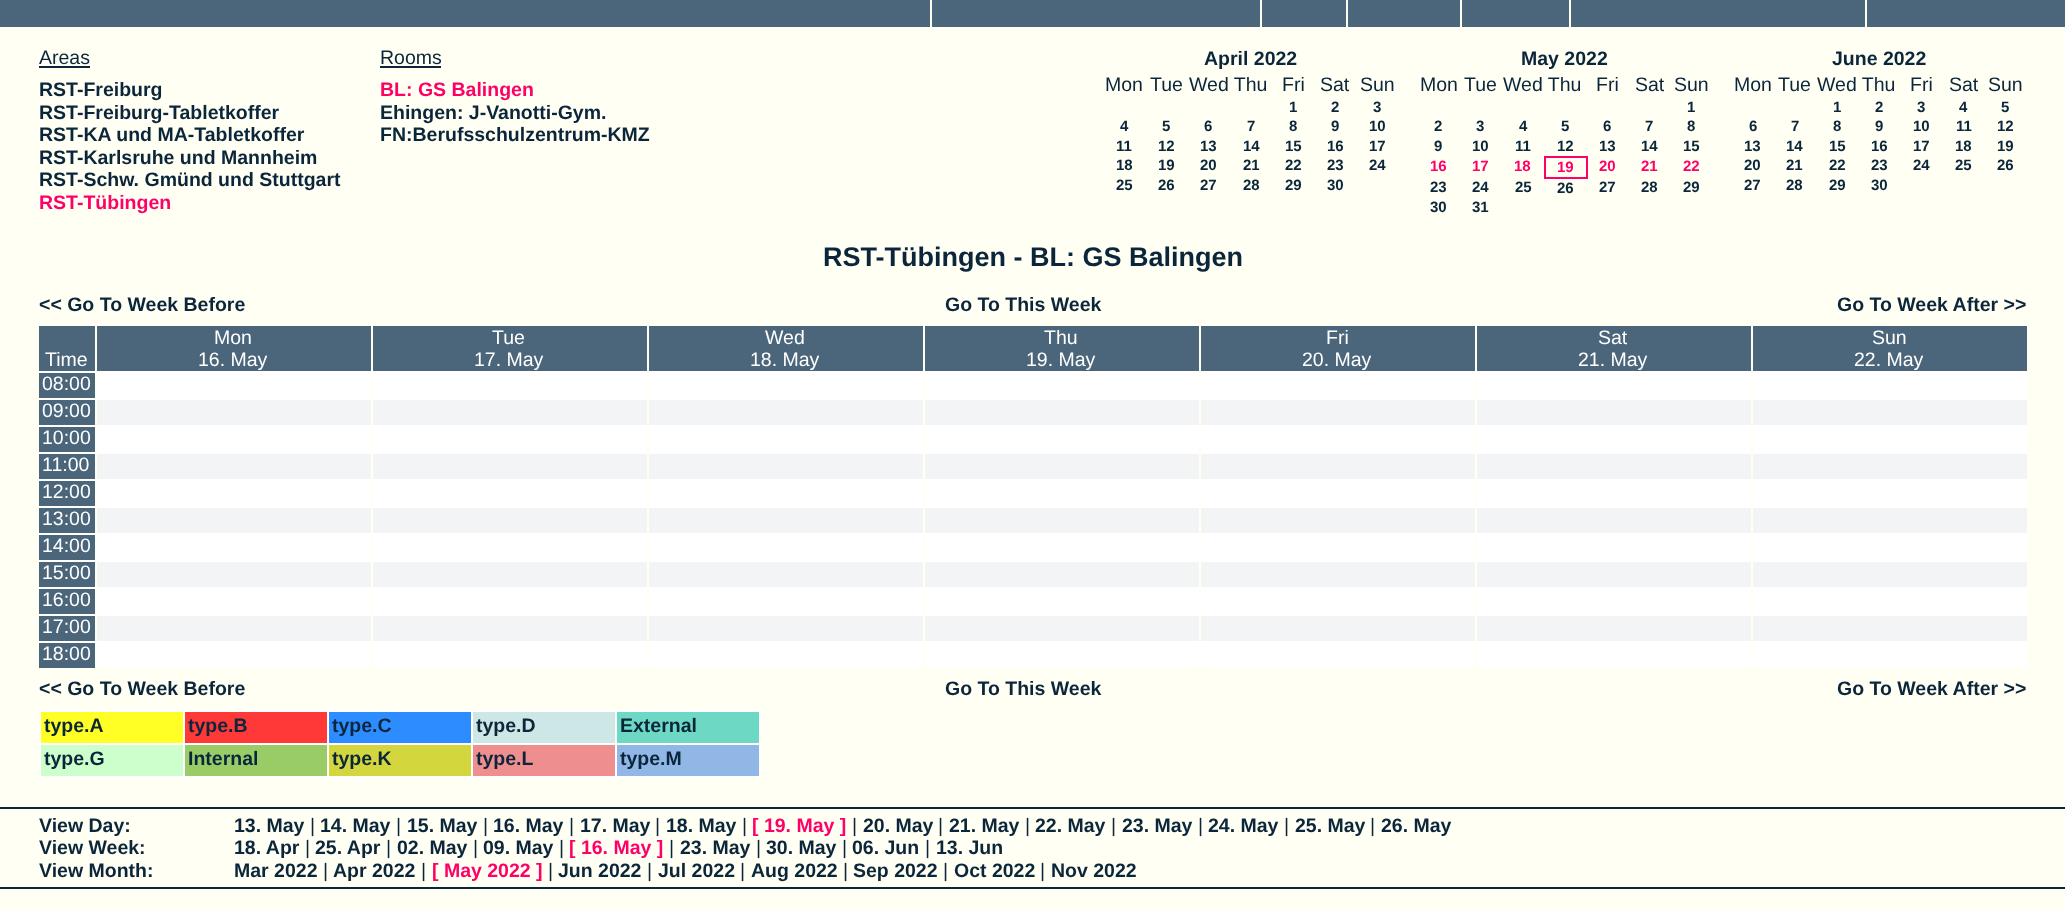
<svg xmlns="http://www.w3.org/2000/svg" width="2065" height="910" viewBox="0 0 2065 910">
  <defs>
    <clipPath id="clip1"><rect x="44" y="714" width="136" height="26"/></clipPath>
    <clipPath id="clip2"><rect x="188" y="714" width="136" height="26"/></clipPath>
    <clipPath id="clip3"><rect x="332" y="714" width="136" height="26"/></clipPath>
    <clipPath id="clip4"><rect x="476" y="714" width="136" height="26"/></clipPath>
    <clipPath id="clip5"><rect x="44" y="747" width="136" height="26"/></clipPath>
    <clipPath id="clip6"><rect x="332" y="747" width="136" height="26"/></clipPath>
    <clipPath id="clip7"><rect x="476" y="747" width="136" height="26"/></clipPath>
    <clipPath id="clip8"><rect x="620" y="747" width="136" height="26"/></clipPath>
  </defs>
  <rect width="100%" height="100%" fill="rgb(255,255,244)"/>
  <rect x="0" y="0" width="2065" height="27" fill="rgb(75,102,123)"/>
  <rect x="930" y="0" width="2" height="27" fill="rgb(255,255,244)"/>
  <rect x="1260" y="0" width="2" height="27" fill="rgb(255,255,244)"/>
  <rect x="1346" y="0" width="2" height="27" fill="rgb(255,255,244)"/>
  <rect x="1460" y="0" width="2" height="27" fill="rgb(255,255,244)"/>
  <rect x="1569" y="0" width="2" height="27" fill="rgb(255,255,244)"/>
  <rect x="1865" y="0" width="2" height="27" fill="rgb(255,255,244)"/>
  <text x="39" y="64" font-family="Liberation Sans" font-size="19.5" fill="rgb(11,38,59)">Areas</text>
  <rect x="39" y="66" width="51" height="2" fill="rgb(11,38,59)"/>
  <g font-family="Liberation Sans" font-size="19.5" font-weight="bold" fill="rgb(11,38,59)">
    <text>
      <tspan x="39" y="96">RST-Freiburg</tspan>
      <tspan x="39" y="119">RST-Freiburg-Tabletkoffer</tspan>
      <tspan x="39" y="141">RST-KA und MA-Tabletkoffer</tspan>
      <tspan x="39" y="164">RST-Karlsruhe und Mannheim</tspan>
      <tspan x="39" y="186">RST-Schw. Gmünd und Stuttgart</tspan>
    </text>
  </g>
  <text x="39" y="209" font-family="Liberation Sans" font-size="19.5" font-weight="bold" fill="rgb(255,0,102)">RST-Tübingen</text>
  <text x="380" y="64" font-family="Liberation Sans" font-size="19.5" fill="rgb(11,38,59)">Rooms</text>
  <rect x="380" y="66" width="61" height="2" fill="rgb(11,38,59)"/>
  <text x="380" y="96" font-family="Liberation Sans" font-size="19.5" font-weight="bold" fill="rgb(255,0,102)">BL: GS Balingen</text>
  <g font-family="Liberation Sans" font-size="19.5" font-weight="bold" fill="rgb(11,38,59)">
    <text>
      <tspan x="380" y="119">Ehingen: J-Vanotti-Gym.</tspan>
      <tspan x="380" y="141">FN:Berufsschulzentrum-KMZ</tspan>
    </text>
    <text x="1204" y="65">April 2022</text>
  </g>
  <g font-family="Liberation Sans" font-size="19.5" fill="rgb(11,38,59)">
    <text x="1105" y="91">Mon</text>
    <text x="1150" y="91">Tue</text>
    <text x="1189" y="91">Wed Thu</text>
    <text x="1282" y="91">Fri</text>
    <text x="1320" y="91">Sat</text>
    <text x="1360" y="91">Sun</text>
  </g>
  <g font-family="Liberation Sans" font-size="15" font-weight="bold" fill="rgb(11,38,59)">
    <text x="1289" y="112">1</text>
    <text x="1331" y="112">2</text>
    <text x="1373" y="112">3</text>
    <text x="1120" y="131">4</text>
    <text x="1162" y="131">5</text>
    <text x="1204" y="131">6</text>
    <text x="1247" y="131">7</text>
    <text x="1289" y="131">8</text>
    <text x="1331" y="131">9</text>
    <text x="1369" y="131">10</text>
    <text x="1116" y="151">11</text>
    <text x="1158" y="151">12</text>
    <text x="1200" y="151">13</text>
    <text x="1243" y="151">14</text>
    <text x="1285" y="151">15</text>
    <text x="1327" y="151">16</text>
    <text x="1369" y="151">17</text>
    <text x="1116" y="170">18</text>
    <text x="1158" y="170">19</text>
    <text x="1200" y="170">20</text>
    <text x="1243" y="170">21</text>
    <text x="1285" y="170">22</text>
    <text x="1327" y="170">23</text>
    <text x="1369" y="170">24</text>
    <text x="1116" y="190">25</text>
    <text x="1158" y="190">26</text>
    <text x="1200" y="190">27</text>
    <text x="1243" y="190">28</text>
    <text x="1285" y="190">29</text>
    <text x="1327" y="190">30</text>
  </g>
  <text x="1521" y="65" font-family="Liberation Sans" font-size="19.5" font-weight="bold" fill="rgb(11,38,59)">May 2022</text>
  <g font-family="Liberation Sans" font-size="19.5" fill="rgb(11,38,59)">
    <text x="1420" y="91">Mon</text>
    <text x="1464" y="91">Tue</text>
    <text x="1503" y="91">Wed Thu</text>
    <text x="1596" y="91">Fri</text>
    <text x="1635" y="91">Sat</text>
    <text x="1674" y="91">Sun</text>
  </g>
  <g font-family="Liberation Sans" font-size="15" font-weight="bold" fill="rgb(11,38,59)">
    <text x="1687" y="112">1</text>
    <text x="1434" y="131">2</text>
    <text x="1476" y="131">3</text>
    <text x="1519" y="131">4</text>
    <text x="1561" y="131">5</text>
    <text x="1603" y="131">6</text>
    <text x="1645" y="131">7</text>
    <text x="1687" y="131">8</text>
    <text x="1434" y="151">9</text>
    <text x="1472" y="151">10</text>
    <text x="1515" y="151">11</text>
    <text x="1557" y="151">12</text>
    <text x="1599" y="151">13</text>
    <text x="1641" y="151">14</text>
    <text x="1683" y="151">15</text>
  </g>
  <g font-family="Liberation Sans" font-size="15" font-weight="bold" fill="rgb(255,0,102)">
    <text x="1430" y="171">16</text>
    <text x="1472" y="171">17</text>
    <text x="1514" y="171">18</text>
  </g>
  <rect x="1544" y="156" width="43" height="2" fill="rgb(255,0,102)"/>
  <rect x="1586" y="156" width="2" height="23" fill="rgb(255,0,102)"/>
  <rect x="1544" y="177" width="43" height="2" fill="rgb(255,0,102)"/>
  <rect x="1544" y="156" width="2" height="23" fill="rgb(255,0,102)"/>
  <g font-family="Liberation Sans" font-size="15" font-weight="bold" fill="rgb(255,0,102)">
    <text x="1557" y="172">19</text>
    <text x="1599" y="171">20</text>
    <text x="1641" y="171">21</text>
    <text x="1683" y="171">22</text>
  </g>
  <g font-family="Liberation Sans" font-size="15" font-weight="bold" fill="rgb(11,38,59)">
    <text x="1430" y="192">23</text>
    <text x="1472" y="192">24</text>
    <text x="1515" y="192">25</text>
    <text x="1557" y="193">26</text>
    <text x="1599" y="192">27</text>
    <text x="1641" y="192">28</text>
    <text x="1683" y="192">29</text>
    <text x="1430" y="212">30</text>
    <text x="1472" y="212">31</text>
  </g>
  <text x="1832" y="65" font-family="Liberation Sans" font-size="19.5" font-weight="bold" fill="rgb(11,38,59)">June 2022</text>
  <g font-family="Liberation Sans" font-size="19.5" fill="rgb(11,38,59)">
    <text x="1734" y="91">Mon</text>
    <text x="1778" y="91">Tue</text>
    <text x="1817" y="91">Wed Thu</text>
    <text x="1910" y="91">Fri</text>
    <text x="1949" y="91">Sat</text>
    <text x="1988" y="91">Sun</text>
  </g>
  <g font-family="Liberation Sans" font-size="15" font-weight="bold" fill="rgb(11,38,59)">
    <text x="1833" y="112">1</text>
    <text x="1875" y="112">2</text>
    <text x="1917" y="112">3</text>
    <text x="1959" y="112">4</text>
    <text x="2001" y="112">5</text>
    <text x="1749" y="131">6</text>
    <text x="1791" y="131">7</text>
    <text x="1833" y="131">8</text>
    <text x="1875" y="131">9</text>
    <text x="1913" y="131">10</text>
    <text x="1956" y="131">11</text>
    <text x="1997" y="131">12</text>
    <text x="1744" y="151">13</text>
    <text x="1786" y="151">14</text>
    <text x="1829" y="151">15</text>
    <text x="1871" y="151">16</text>
    <text x="1913" y="151">17</text>
    <text x="1955" y="151">18</text>
    <text x="1997" y="151">19</text>
    <text x="1744" y="170">20</text>
    <text x="1786" y="170">21</text>
    <text x="1829" y="170">22</text>
    <text x="1871" y="170">23</text>
    <text x="1913" y="170">24</text>
    <text x="1955" y="170">25</text>
    <text x="1997" y="170">26</text>
    <text x="1744" y="190">27</text>
    <text x="1786" y="190">28</text>
    <text x="1829" y="190">29</text>
    <text x="1871" y="190">30</text>
  </g>
  <text x="823" y="266" font-family="Liberation Sans" font-size="27" font-weight="bold" fill="rgb(11,38,59)">RST-Tübingen - BL: GS Balingen</text>
  <g font-family="Liberation Sans" font-size="19.5" font-weight="bold" fill="rgb(11,38,59)">
    <text x="39" y="311">&lt;&lt; Go To Week Before</text>
    <text x="945" y="311">Go To This Week</text>
    <text x="1837" y="311">Go To Week After &gt;&gt;</text>
  </g>
  <rect x="39" y="326" width="56" height="45" fill="rgb(75,102,123)"/>
  <text x="45" y="366" font-family="Liberation Sans" font-size="19.5" fill="rgb(255,255,255)">Time</text>
  <rect x="97" y="326" width="274" height="45" fill="rgb(75,102,123)"/>
  <g font-family="Liberation Sans" font-size="19.5" fill="rgb(255,255,255)">
    <text x="214" y="344">Mon</text>
    <text x="198" y="366">16. May</text>
  </g>
  <rect x="373" y="326" width="274" height="45" fill="rgb(75,102,123)"/>
  <g font-family="Liberation Sans" font-size="19.5" fill="rgb(255,255,255)">
    <text x="492" y="344">Tue</text>
    <text x="474" y="366">17. May</text>
  </g>
  <rect x="649" y="326" width="274" height="45" fill="rgb(75,102,123)"/>
  <g font-family="Liberation Sans" font-size="19.5" fill="rgb(255,255,255)">
    <text x="765" y="344">Wed</text>
    <text x="750" y="366">18. May</text>
  </g>
  <rect x="925" y="326" width="274" height="45" fill="rgb(75,102,123)"/>
  <g font-family="Liberation Sans" font-size="19.5" fill="rgb(255,255,255)">
    <text x="1044" y="344">Thu</text>
    <text x="1026" y="366">19. May</text>
  </g>
  <rect x="1201" y="326" width="274" height="45" fill="rgb(75,102,123)"/>
  <g font-family="Liberation Sans" font-size="19.5" fill="rgb(255,255,255)">
    <text x="1326" y="344">Fri</text>
    <text x="1302" y="366">20. May</text>
  </g>
  <rect x="1477" y="326" width="274" height="45" fill="rgb(75,102,123)"/>
  <g font-family="Liberation Sans" font-size="19.5" fill="rgb(255,255,255)">
    <text x="1598" y="344">Sat</text>
    <text x="1578" y="366">21. May</text>
  </g>
  <rect x="1753" y="326" width="274" height="45" fill="rgb(75,102,123)"/>
  <g font-family="Liberation Sans" font-size="19.5" fill="rgb(255,255,255)">
    <text x="1872" y="344">Sun</text>
    <text x="1854" y="366">22. May</text>
  </g>
  <rect x="39" y="373" width="56" height="25" fill="rgb(75,102,123)"/>
  <rect x="39" y="371" width="56" height="2" fill="rgb(255,255,255)"/>
  <text x="42" y="390" font-family="Liberation Sans" font-size="19.5" fill="rgb(255,255,255)">08:00</text>
  <rect x="97" y="371" width="274" height="27" fill="rgb(255,255,255)"/>
  <rect x="373" y="371" width="274" height="27" fill="rgb(255,255,255)"/>
  <rect x="649" y="371" width="274" height="27" fill="rgb(255,255,255)"/>
  <rect x="925" y="371" width="274" height="27" fill="rgb(255,255,255)"/>
  <rect x="1201" y="371" width="274" height="27" fill="rgb(255,255,255)"/>
  <rect x="1477" y="371" width="274" height="27" fill="rgb(255,255,255)"/>
  <rect x="1753" y="371" width="274" height="27" fill="rgb(255,255,255)"/>
  <rect x="39" y="400" width="56" height="25" fill="rgb(75,102,123)"/>
  <rect x="39" y="398" width="1988" height="2" fill="rgb(255,255,255)"/>
  <text x="42" y="417" font-family="Liberation Sans" font-size="19.5" fill="rgb(255,255,255)">09:00</text>
  <rect x="97" y="400" width="274" height="25" fill="rgb(242,244,246)"/>
  <rect x="95" y="398" width="2" height="2" fill="rgb(255,255,244)"/>
  <rect x="373" y="400" width="274" height="25" fill="rgb(242,244,246)"/>
  <rect x="371" y="398" width="2" height="2" fill="rgb(255,255,244)"/>
  <rect x="649" y="400" width="274" height="25" fill="rgb(242,244,246)"/>
  <rect x="647" y="398" width="2" height="2" fill="rgb(255,255,244)"/>
  <rect x="925" y="400" width="274" height="25" fill="rgb(242,244,246)"/>
  <rect x="923" y="398" width="2" height="2" fill="rgb(255,255,244)"/>
  <rect x="1201" y="400" width="274" height="25" fill="rgb(242,244,246)"/>
  <rect x="1199" y="398" width="2" height="2" fill="rgb(255,255,244)"/>
  <rect x="1477" y="400" width="274" height="25" fill="rgb(242,244,246)"/>
  <rect x="1475" y="398" width="2" height="2" fill="rgb(255,255,244)"/>
  <rect x="1753" y="400" width="274" height="25" fill="rgb(242,244,246)"/>
  <rect x="1751" y="398" width="2" height="2" fill="rgb(255,255,244)"/>
  <rect x="39" y="427" width="56" height="25" fill="rgb(75,102,123)"/>
  <rect x="39" y="425" width="56" height="2" fill="rgb(255,255,255)"/>
  <text x="42" y="444" font-family="Liberation Sans" font-size="19.5" fill="rgb(255,255,255)">10:00</text>
  <rect x="97" y="425" width="274" height="27" fill="rgb(255,255,255)"/>
  <rect x="373" y="425" width="274" height="27" fill="rgb(255,255,255)"/>
  <rect x="649" y="425" width="274" height="27" fill="rgb(255,255,255)"/>
  <rect x="925" y="425" width="274" height="27" fill="rgb(255,255,255)"/>
  <rect x="1201" y="425" width="274" height="27" fill="rgb(255,255,255)"/>
  <rect x="1477" y="425" width="274" height="27" fill="rgb(255,255,255)"/>
  <rect x="1753" y="425" width="274" height="27" fill="rgb(255,255,255)"/>
  <rect x="39" y="454" width="56" height="25" fill="rgb(75,102,123)"/>
  <rect x="39" y="452" width="1988" height="2" fill="rgb(255,255,255)"/>
  <text x="42" y="471" font-family="Liberation Sans" font-size="19.5" fill="rgb(255,255,255)">11:00</text>
  <rect x="97" y="454" width="274" height="25" fill="rgb(242,244,246)"/>
  <rect x="95" y="452" width="2" height="2" fill="rgb(255,255,244)"/>
  <rect x="373" y="454" width="274" height="25" fill="rgb(242,244,246)"/>
  <rect x="371" y="452" width="2" height="2" fill="rgb(255,255,244)"/>
  <rect x="649" y="454" width="274" height="25" fill="rgb(242,244,246)"/>
  <rect x="647" y="452" width="2" height="2" fill="rgb(255,255,244)"/>
  <rect x="925" y="454" width="274" height="25" fill="rgb(242,244,246)"/>
  <rect x="923" y="452" width="2" height="2" fill="rgb(255,255,244)"/>
  <rect x="1201" y="454" width="274" height="25" fill="rgb(242,244,246)"/>
  <rect x="1199" y="452" width="2" height="2" fill="rgb(255,255,244)"/>
  <rect x="1477" y="454" width="274" height="25" fill="rgb(242,244,246)"/>
  <rect x="1475" y="452" width="2" height="2" fill="rgb(255,255,244)"/>
  <rect x="1753" y="454" width="274" height="25" fill="rgb(242,244,246)"/>
  <rect x="1751" y="452" width="2" height="2" fill="rgb(255,255,244)"/>
  <rect x="39" y="481" width="56" height="25" fill="rgb(75,102,123)"/>
  <rect x="39" y="479" width="56" height="2" fill="rgb(255,255,255)"/>
  <text x="42" y="498" font-family="Liberation Sans" font-size="19.5" fill="rgb(255,255,255)">12:00</text>
  <rect x="97" y="479" width="274" height="27" fill="rgb(255,255,255)"/>
  <rect x="373" y="479" width="274" height="27" fill="rgb(255,255,255)"/>
  <rect x="649" y="479" width="274" height="27" fill="rgb(255,255,255)"/>
  <rect x="925" y="479" width="274" height="27" fill="rgb(255,255,255)"/>
  <rect x="1201" y="479" width="274" height="27" fill="rgb(255,255,255)"/>
  <rect x="1477" y="479" width="274" height="27" fill="rgb(255,255,255)"/>
  <rect x="1753" y="479" width="274" height="27" fill="rgb(255,255,255)"/>
  <rect x="39" y="508" width="56" height="25" fill="rgb(75,102,123)"/>
  <rect x="39" y="506" width="1988" height="2" fill="rgb(255,255,255)"/>
  <text x="42" y="525" font-family="Liberation Sans" font-size="19.5" fill="rgb(255,255,255)">13:00</text>
  <rect x="97" y="508" width="274" height="25" fill="rgb(242,244,246)"/>
  <rect x="95" y="506" width="2" height="2" fill="rgb(255,255,244)"/>
  <rect x="373" y="508" width="274" height="25" fill="rgb(242,244,246)"/>
  <rect x="371" y="506" width="2" height="2" fill="rgb(255,255,244)"/>
  <rect x="649" y="508" width="274" height="25" fill="rgb(242,244,246)"/>
  <rect x="647" y="506" width="2" height="2" fill="rgb(255,255,244)"/>
  <rect x="925" y="508" width="274" height="25" fill="rgb(242,244,246)"/>
  <rect x="923" y="506" width="2" height="2" fill="rgb(255,255,244)"/>
  <rect x="1201" y="508" width="274" height="25" fill="rgb(242,244,246)"/>
  <rect x="1199" y="506" width="2" height="2" fill="rgb(255,255,244)"/>
  <rect x="1477" y="508" width="274" height="25" fill="rgb(242,244,246)"/>
  <rect x="1475" y="506" width="2" height="2" fill="rgb(255,255,244)"/>
  <rect x="1753" y="508" width="274" height="25" fill="rgb(242,244,246)"/>
  <rect x="1751" y="506" width="2" height="2" fill="rgb(255,255,244)"/>
  <rect x="39" y="535" width="56" height="25" fill="rgb(75,102,123)"/>
  <rect x="39" y="533" width="56" height="2" fill="rgb(255,255,255)"/>
  <text x="42" y="552" font-family="Liberation Sans" font-size="19.5" fill="rgb(255,255,255)">14:00</text>
  <rect x="97" y="533" width="274" height="27" fill="rgb(255,255,255)"/>
  <rect x="373" y="533" width="274" height="27" fill="rgb(255,255,255)"/>
  <rect x="649" y="533" width="274" height="27" fill="rgb(255,255,255)"/>
  <rect x="925" y="533" width="274" height="27" fill="rgb(255,255,255)"/>
  <rect x="1201" y="533" width="274" height="27" fill="rgb(255,255,255)"/>
  <rect x="1477" y="533" width="274" height="27" fill="rgb(255,255,255)"/>
  <rect x="1753" y="533" width="274" height="27" fill="rgb(255,255,255)"/>
  <rect x="39" y="562" width="56" height="25" fill="rgb(75,102,123)"/>
  <rect x="39" y="560" width="1988" height="2" fill="rgb(255,255,255)"/>
  <text x="42" y="579" font-family="Liberation Sans" font-size="19.5" fill="rgb(255,255,255)">15:00</text>
  <rect x="97" y="562" width="274" height="25" fill="rgb(242,244,246)"/>
  <rect x="95" y="560" width="2" height="2" fill="rgb(255,255,244)"/>
  <rect x="373" y="562" width="274" height="25" fill="rgb(242,244,246)"/>
  <rect x="371" y="560" width="2" height="2" fill="rgb(255,255,244)"/>
  <rect x="649" y="562" width="274" height="25" fill="rgb(242,244,246)"/>
  <rect x="647" y="560" width="2" height="2" fill="rgb(255,255,244)"/>
  <rect x="925" y="562" width="274" height="25" fill="rgb(242,244,246)"/>
  <rect x="923" y="560" width="2" height="2" fill="rgb(255,255,244)"/>
  <rect x="1201" y="562" width="274" height="25" fill="rgb(242,244,246)"/>
  <rect x="1199" y="560" width="2" height="2" fill="rgb(255,255,244)"/>
  <rect x="1477" y="562" width="274" height="25" fill="rgb(242,244,246)"/>
  <rect x="1475" y="560" width="2" height="2" fill="rgb(255,255,244)"/>
  <rect x="1753" y="562" width="274" height="25" fill="rgb(242,244,246)"/>
  <rect x="1751" y="560" width="2" height="2" fill="rgb(255,255,244)"/>
  <rect x="39" y="589" width="56" height="25" fill="rgb(75,102,123)"/>
  <rect x="39" y="587" width="56" height="2" fill="rgb(255,255,255)"/>
  <text x="42" y="606" font-family="Liberation Sans" font-size="19.5" fill="rgb(255,255,255)">16:00</text>
  <rect x="97" y="587" width="274" height="27" fill="rgb(255,255,255)"/>
  <rect x="373" y="587" width="274" height="27" fill="rgb(255,255,255)"/>
  <rect x="649" y="587" width="274" height="27" fill="rgb(255,255,255)"/>
  <rect x="925" y="587" width="274" height="27" fill="rgb(255,255,255)"/>
  <rect x="1201" y="587" width="274" height="27" fill="rgb(255,255,255)"/>
  <rect x="1477" y="587" width="274" height="27" fill="rgb(255,255,255)"/>
  <rect x="1753" y="587" width="274" height="27" fill="rgb(255,255,255)"/>
  <rect x="39" y="616" width="56" height="25" fill="rgb(75,102,123)"/>
  <rect x="39" y="614" width="1988" height="2" fill="rgb(255,255,255)"/>
  <text x="42" y="633" font-family="Liberation Sans" font-size="19.5" fill="rgb(255,255,255)">17:00</text>
  <rect x="97" y="616" width="274" height="25" fill="rgb(242,244,246)"/>
  <rect x="95" y="614" width="2" height="2" fill="rgb(255,255,244)"/>
  <rect x="373" y="616" width="274" height="25" fill="rgb(242,244,246)"/>
  <rect x="371" y="614" width="2" height="2" fill="rgb(255,255,244)"/>
  <rect x="649" y="616" width="274" height="25" fill="rgb(242,244,246)"/>
  <rect x="647" y="614" width="2" height="2" fill="rgb(255,255,244)"/>
  <rect x="925" y="616" width="274" height="25" fill="rgb(242,244,246)"/>
  <rect x="923" y="614" width="2" height="2" fill="rgb(255,255,244)"/>
  <rect x="1201" y="616" width="274" height="25" fill="rgb(242,244,246)"/>
  <rect x="1199" y="614" width="2" height="2" fill="rgb(255,255,244)"/>
  <rect x="1477" y="616" width="274" height="25" fill="rgb(242,244,246)"/>
  <rect x="1475" y="614" width="2" height="2" fill="rgb(255,255,244)"/>
  <rect x="1753" y="616" width="274" height="25" fill="rgb(242,244,246)"/>
  <rect x="1751" y="614" width="2" height="2" fill="rgb(255,255,244)"/>
  <rect x="39" y="643" width="56" height="25" fill="rgb(75,102,123)"/>
  <rect x="39" y="641" width="56" height="2" fill="rgb(255,255,255)"/>
  <text x="42" y="660" font-family="Liberation Sans" font-size="19.5" fill="rgb(255,255,255)">18:00</text>
  <rect x="97" y="641" width="274" height="27" fill="rgb(255,255,255)"/>
  <rect x="373" y="641" width="274" height="27" fill="rgb(255,255,255)"/>
  <rect x="649" y="641" width="274" height="27" fill="rgb(255,255,255)"/>
  <rect x="925" y="641" width="274" height="27" fill="rgb(255,255,255)"/>
  <rect x="1201" y="641" width="274" height="27" fill="rgb(255,255,255)"/>
  <rect x="1477" y="641" width="274" height="27" fill="rgb(255,255,255)"/>
  <rect x="1753" y="641" width="274" height="27" fill="rgb(255,255,255)"/>
  <g font-family="Liberation Sans" font-size="19.5" font-weight="bold" fill="rgb(11,38,59)">
    <text x="39" y="695">&lt;&lt; Go To Week Before</text>
    <text x="945" y="695">Go To This Week</text>
    <text x="1837" y="695">Go To Week After &gt;&gt;</text>
  </g>
  <rect x="41" y="712" width="142" height="31" fill="rgb(255,255,37)"/>
  <rect x="615" y="710" width="146" height="2" fill="rgb(255,255,255)"/>
  <rect x="615" y="743" width="146" height="2" fill="rgb(255,255,255)"/>
  <rect x="759" y="743" width="2" height="34" fill="rgb(255,255,255)"/>
  <rect x="615" y="776" width="146" height="2" fill="rgb(255,255,255)"/>
  <rect x="615" y="743" width="2" height="34" fill="rgb(255,255,255)"/>
  <rect x="471" y="743" width="146" height="2" fill="rgb(255,255,255)"/>
  <rect x="615" y="710" width="2" height="34" fill="rgb(255,255,255)"/>
  <rect x="471" y="710" width="146" height="2" fill="rgb(255,255,255)"/>
  <rect x="471" y="776" width="146" height="2" fill="rgb(255,255,255)"/>
  <rect x="471" y="743" width="2" height="34" fill="rgb(255,255,255)"/>
  <rect x="327" y="743" width="146" height="2" fill="rgb(255,255,255)"/>
  <rect x="471" y="710" width="2" height="34" fill="rgb(255,255,255)"/>
  <rect x="327" y="710" width="146" height="2" fill="rgb(255,255,255)"/>
  <rect x="327" y="776" width="146" height="2" fill="rgb(255,255,255)"/>
  <rect x="327" y="743" width="2" height="34" fill="rgb(255,255,255)"/>
  <rect x="183" y="743" width="146" height="2" fill="rgb(255,255,255)"/>
  <rect x="327" y="710" width="2" height="34" fill="rgb(255,255,255)"/>
  <rect x="183" y="710" width="146" height="2" fill="rgb(255,255,255)"/>
  <rect x="183" y="776" width="146" height="2" fill="rgb(255,255,255)"/>
  <rect x="183" y="743" width="2" height="34" fill="rgb(255,255,255)"/>
  <rect x="39" y="743" width="146" height="2" fill="rgb(255,255,255)"/>
  <rect x="183" y="710" width="2" height="34" fill="rgb(255,255,255)"/>
  <rect x="39" y="710" width="146" height="2" fill="rgb(255,255,255)"/>
  <rect x="39" y="776" width="146" height="2" fill="rgb(255,255,255)"/>
  <rect x="39" y="743" width="2" height="34" fill="rgb(255,255,255)"/>
  <rect x="39" y="710" width="2" height="34" fill="rgb(255,255,255)"/>
  <g clip-path="url(#clip1)">
    <text x="44" y="732" font-family="Liberation Sans" font-size="19.5" font-weight="bold" fill="rgb(11,38,59)">type.A</text>
  </g>
  <rect x="185" y="712" width="142" height="31" fill="rgb(255,56,56)"/>
  <g clip-path="url(#clip2)">
    <text x="188" y="732" font-family="Liberation Sans" font-size="19.5" font-weight="bold" fill="rgb(11,38,59)">type.B</text>
  </g>
  <rect x="329" y="712" width="142" height="31" fill="rgb(45,140,255)"/>
  <g clip-path="url(#clip3)">
    <text x="332" y="732" font-family="Liberation Sans" font-size="19.5" font-weight="bold" fill="rgb(11,38,59)">type.C</text>
  </g>
  <rect x="473" y="712" width="142" height="31" fill="rgb(205,230,230)"/>
  <g clip-path="url(#clip4)">
    <text x="476" y="732" font-family="Liberation Sans" font-size="19.5" font-weight="bold" fill="rgb(11,38,59)">type.D</text>
  </g>
  <rect x="617" y="712" width="142" height="31" fill="rgb(109,217,196)"/>
  <rect x="759" y="710" width="2" height="34" fill="rgb(255,255,255)"/>
  <text x="620" y="732" font-family="Liberation Sans" font-size="19.5" font-weight="bold" fill="rgb(11,38,59)">External</text>
  <rect x="41" y="745" width="142" height="31" fill="rgb(204,255,204)"/>
  <g clip-path="url(#clip5)">
    <text x="44" y="765" font-family="Liberation Sans" font-size="19.5" font-weight="bold" fill="rgb(11,38,59)">type.G</text>
  </g>
  <rect x="185" y="745" width="142" height="31" fill="rgb(153,204,102)"/>
  <text x="188" y="765" font-family="Liberation Sans" font-size="19.5" font-weight="bold" fill="rgb(11,38,59)">Internal</text>
  <rect x="329" y="745" width="142" height="31" fill="rgb(212,214,61)"/>
  <g clip-path="url(#clip6)">
    <text x="332" y="765" font-family="Liberation Sans" font-size="19.5" font-weight="bold" fill="rgb(11,38,59)">type.K</text>
  </g>
  <rect x="473" y="745" width="142" height="31" fill="rgb(239,142,142)"/>
  <g clip-path="url(#clip7)">
    <text x="476" y="765" font-family="Liberation Sans" font-size="19.5" font-weight="bold" fill="rgb(11,38,59)">type.L</text>
  </g>
  <rect x="617" y="745" width="142" height="31" fill="rgb(145,183,230)"/>
  <g clip-path="url(#clip8)">
    <text x="620" y="765" font-family="Liberation Sans" font-size="19.5" font-weight="bold" fill="rgb(11,38,59)">type.M</text>
  </g>
  <rect x="0" y="807" width="2065" height="2" fill="rgb(11,38,59)"/>
  <rect x="0" y="887" width="2065" height="2" fill="rgb(11,38,59)"/>
  <g font-family="Liberation Sans" font-size="19.5" font-weight="bold" fill="rgb(11,38,59)">
    <text x="39" y="832">View Day:</text>
    <text x="234" y="832">13. May</text>
  </g>
  <text x="310" y="832" font-family="Liberation Sans" font-size="19.5" fill="rgb(11,38,59)">|</text>
  <text x="320" y="832" font-family="Liberation Sans" font-size="19.5" font-weight="bold" fill="rgb(11,38,59)">14. May</text>
  <text x="396" y="832" font-family="Liberation Sans" font-size="19.5" fill="rgb(11,38,59)">|</text>
  <text x="407" y="832" font-family="Liberation Sans" font-size="19.5" font-weight="bold" fill="rgb(11,38,59)">15. May</text>
  <text x="483" y="832" font-family="Liberation Sans" font-size="19.5" fill="rgb(11,38,59)">|</text>
  <text x="493" y="832" font-family="Liberation Sans" font-size="19.5" font-weight="bold" fill="rgb(11,38,59)">16. May</text>
  <text x="569" y="832" font-family="Liberation Sans" font-size="19.5" fill="rgb(11,38,59)">|</text>
  <text x="580" y="832" font-family="Liberation Sans" font-size="19.5" font-weight="bold" fill="rgb(11,38,59)">17. May</text>
  <text x="655" y="832" font-family="Liberation Sans" font-size="19.5" fill="rgb(11,38,59)">|</text>
  <text x="666" y="832" font-family="Liberation Sans" font-size="19.5" font-weight="bold" fill="rgb(11,38,59)">18. May</text>
  <text x="742" y="832" font-family="Liberation Sans" font-size="19.5" fill="rgb(11,38,59)">|</text>
  <text x="752" y="832" font-family="Liberation Sans" font-size="19.5" font-weight="bold" fill="rgb(255,0,102)">[ 19. May ]</text>
  <text x="852" y="832" font-family="Liberation Sans" font-size="19.5" fill="rgb(11,38,59)">|</text>
  <text x="863" y="832" font-family="Liberation Sans" font-size="19.5" font-weight="bold" fill="rgb(11,38,59)">20. May</text>
  <text x="938" y="832" font-family="Liberation Sans" font-size="19.5" fill="rgb(11,38,59)">|</text>
  <text x="949" y="832" font-family="Liberation Sans" font-size="19.5" font-weight="bold" fill="rgb(11,38,59)">21. May</text>
  <text x="1025" y="832" font-family="Liberation Sans" font-size="19.5" fill="rgb(11,38,59)">|</text>
  <text x="1035" y="832" font-family="Liberation Sans" font-size="19.5" font-weight="bold" fill="rgb(11,38,59)">22. May</text>
  <text x="1111" y="832" font-family="Liberation Sans" font-size="19.5" fill="rgb(11,38,59)">|</text>
  <text x="1122" y="832" font-family="Liberation Sans" font-size="19.5" font-weight="bold" fill="rgb(11,38,59)">23. May</text>
  <text x="1198" y="832" font-family="Liberation Sans" font-size="19.5" fill="rgb(11,38,59)">|</text>
  <text x="1208" y="832" font-family="Liberation Sans" font-size="19.5" font-weight="bold" fill="rgb(11,38,59)">24. May</text>
  <text x="1284" y="832" font-family="Liberation Sans" font-size="19.5" fill="rgb(11,38,59)">|</text>
  <text x="1295" y="832" font-family="Liberation Sans" font-size="19.5" font-weight="bold" fill="rgb(11,38,59)">25. May</text>
  <text x="1370" y="832" font-family="Liberation Sans" font-size="19.5" fill="rgb(11,38,59)">|</text>
  <g font-family="Liberation Sans" font-size="19.5" font-weight="bold" fill="rgb(11,38,59)">
    <text x="1381" y="832">26. May</text>
    <text x="39" y="854">View Week:</text>
    <text x="234" y="854">18. Apr</text>
  </g>
  <text x="305" y="854" font-family="Liberation Sans" font-size="19.5" fill="rgb(11,38,59)">|</text>
  <text x="315" y="854" font-family="Liberation Sans" font-size="19.5" font-weight="bold" fill="rgb(11,38,59)">25. Apr</text>
  <text x="386" y="854" font-family="Liberation Sans" font-size="19.5" fill="rgb(11,38,59)">|</text>
  <text x="397" y="854" font-family="Liberation Sans" font-size="19.5" font-weight="bold" fill="rgb(11,38,59)">02. May</text>
  <text x="473" y="854" font-family="Liberation Sans" font-size="19.5" fill="rgb(11,38,59)">|</text>
  <text x="483" y="854" font-family="Liberation Sans" font-size="19.5" font-weight="bold" fill="rgb(11,38,59)">09. May</text>
  <text x="559" y="854" font-family="Liberation Sans" font-size="19.5" fill="rgb(11,38,59)">|</text>
  <text x="569" y="854" font-family="Liberation Sans" font-size="19.5" font-weight="bold" fill="rgb(255,0,102)">[ 16. May ]</text>
  <text x="669" y="854" font-family="Liberation Sans" font-size="19.5" fill="rgb(11,38,59)">|</text>
  <text x="680" y="854" font-family="Liberation Sans" font-size="19.5" font-weight="bold" fill="rgb(11,38,59)">23. May</text>
  <text x="756" y="854" font-family="Liberation Sans" font-size="19.5" fill="rgb(11,38,59)">|</text>
  <text x="766" y="854" font-family="Liberation Sans" font-size="19.5" font-weight="bold" fill="rgb(11,38,59)">30. May</text>
  <text x="842" y="854" font-family="Liberation Sans" font-size="19.5" fill="rgb(11,38,59)">|</text>
  <text x="852" y="854" font-family="Liberation Sans" font-size="19.5" font-weight="bold" fill="rgb(11,38,59)">06. Jun</text>
  <text x="925" y="854" font-family="Liberation Sans" font-size="19.5" fill="rgb(11,38,59)">|</text>
  <g font-family="Liberation Sans" font-size="19.5" font-weight="bold" fill="rgb(11,38,59)">
    <text x="936" y="854">13. Jun</text>
    <text x="39" y="877">View Month:</text>
    <text x="234" y="877">Mar 2022</text>
  </g>
  <text x="323" y="877" font-family="Liberation Sans" font-size="19.5" fill="rgb(11,38,59)">|</text>
  <text x="333" y="877" font-family="Liberation Sans" font-size="19.5" font-weight="bold" fill="rgb(11,38,59)">Apr 2022</text>
  <text x="421" y="877" font-family="Liberation Sans" font-size="19.5" fill="rgb(11,38,59)">|</text>
  <text x="432" y="877" font-family="Liberation Sans" font-size="19.5" font-weight="bold" fill="rgb(255,0,102)">[ May 2022 ]</text>
  <text x="548" y="877" font-family="Liberation Sans" font-size="19.5" fill="rgb(11,38,59)">|</text>
  <text x="558" y="877" font-family="Liberation Sans" font-size="19.5" font-weight="bold" fill="rgb(11,38,59)">Jun 2022</text>
  <text x="647" y="877" font-family="Liberation Sans" font-size="19.5" fill="rgb(11,38,59)">|</text>
  <text x="658" y="877" font-family="Liberation Sans" font-size="19.5" font-weight="bold" fill="rgb(11,38,59)">Jul 2022</text>
  <text x="740" y="877" font-family="Liberation Sans" font-size="19.5" fill="rgb(11,38,59)">|</text>
  <text x="751" y="877" font-family="Liberation Sans" font-size="19.5" font-weight="bold" fill="rgb(11,38,59)">Aug 2022</text>
  <text x="843" y="877" font-family="Liberation Sans" font-size="19.5" fill="rgb(11,38,59)">|</text>
  <text x="853" y="877" font-family="Liberation Sans" font-size="19.5" font-weight="bold" fill="rgb(11,38,59)">Sep 2022</text>
  <text x="943" y="877" font-family="Liberation Sans" font-size="19.5" fill="rgb(11,38,59)">|</text>
  <text x="954" y="877" font-family="Liberation Sans" font-size="19.5" font-weight="bold" fill="rgb(11,38,59)">Oct 2022</text>
  <text x="1040" y="877" font-family="Liberation Sans" font-size="19.5" fill="rgb(11,38,59)">|</text>
  <text x="1051" y="877" font-family="Liberation Sans" font-size="19.5" font-weight="bold" fill="rgb(11,38,59)">Nov 2022</text>
</svg>
